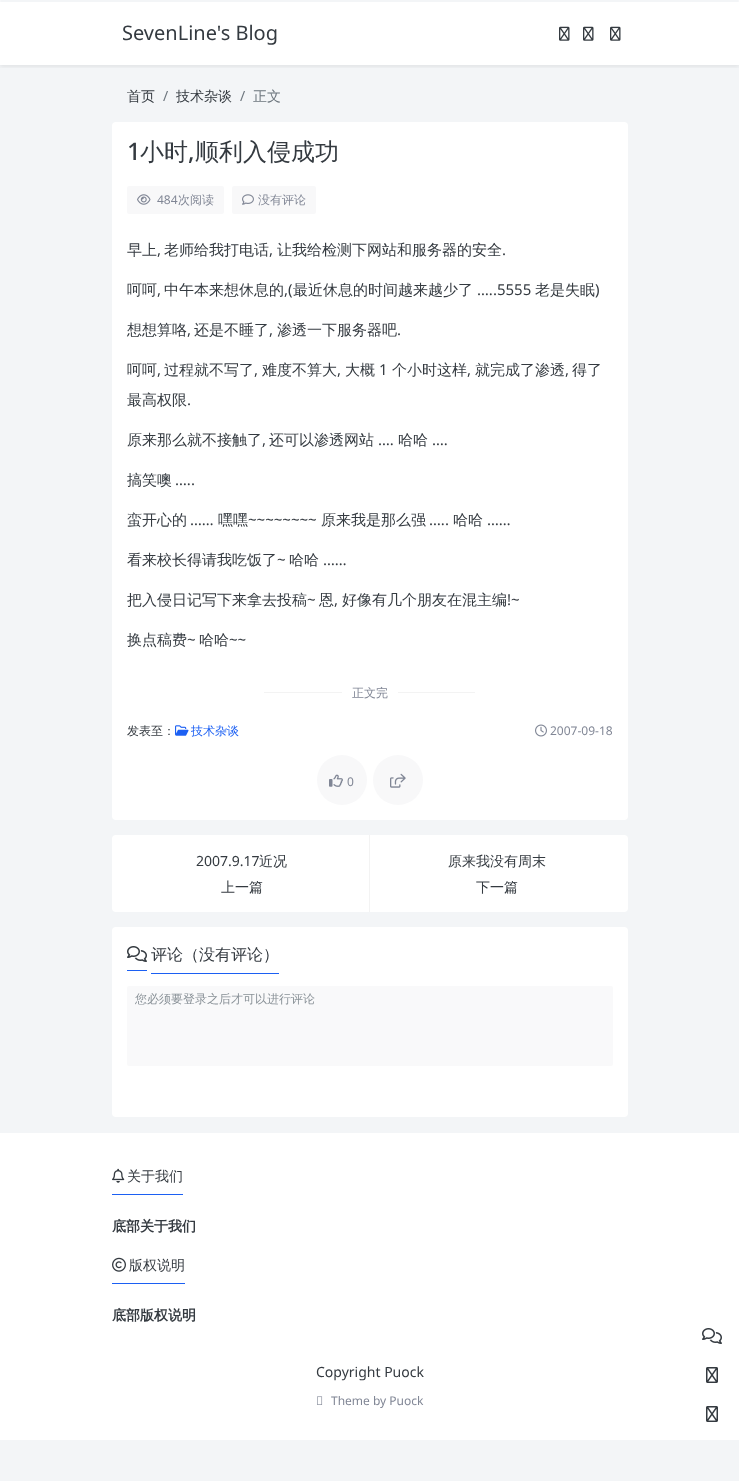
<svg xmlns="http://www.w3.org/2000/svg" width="739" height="1481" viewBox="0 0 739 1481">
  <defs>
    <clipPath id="clip1"><rect x="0" y="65" width="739" height="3"/></clipPath>
  </defs>
  <rect width="100%" height="100%" fill="rgb(243,245,247)"/>
  <rect x="0" y="0" width="739" height="65" fill="rgb(255,255,255)"/>
  <g clip-path="url(#clip1)">
    <rect x="0" y="2" width="739" height="65" fill="rgba(0,0,0,0.07)" filter="blur(2px)"/>
  </g>
  <rect x="0" y="0" width="739" height="2" rx="1" fill="rgb(243,245,247)"/>
  <text x="122" y="40" font-family="Noto Sans" font-size="20" fill="rgb(52,58,64)">SevenLine's Blog</text>
  <image x="559" y="26" width="11" height="15" href="pic1.png"/>
  <image x="583" y="26" width="11" height="15" href="pic1.png"/>
  <image x="610" y="26" width="11" height="15" href="pic1.png"/>
  <text x="127" y="101" font-family="WenQuanYi Zen Hei" font-size="14" font-weight="500" fill="rgb(52,58,64)">首页</text>
  <text x="163" y="101" font-family="Noto Sans" font-size="14" fill="rgb(108,117,125)">/</text>
  <text x="176" y="101" font-family="WenQuanYi Zen Hei" font-size="14" font-weight="500" fill="rgb(52,58,64)">技术杂谈</text>
  <text x="240" y="101" font-family="Noto Sans" font-size="14" fill="rgb(108,117,125)">/</text>
  <text x="253" y="101" font-family="WenQuanYi Zen Hei" font-size="14" font-weight="500" fill="rgb(108,117,125)">正文</text>
  <rect x="112" y="122" width="516" height="698" rx="4" fill="rgb(255,255,255)"/>
  <text x="127" y="160" font-family="Noto Sans" font-size="24" font-weight="500" fill="rgb(52,58,64)">1</text>
  <text x="140" y="160" font-family="WenQuanYi Zen Hei" font-size="24" font-weight="500" fill="rgb(52,58,64)">小时</text>
  <text x="188" y="160" font-family="Noto Sans" font-size="24" font-weight="500" fill="rgb(52,58,64)">,</text>
  <text x="195" y="160" font-family="WenQuanYi Zen Hei" font-size="24" font-weight="500" fill="rgb(52,58,64)">顺利入侵成功</text>
  <rect x="127" y="186" width="97" height="28" rx="2" fill="rgb(248,248,249)"/>
  <image x="137" y="194" width="14" height="11" href="pic2.png"/>
  <text x="157" y="204" font-family="Noto Sans" font-size="12" fill="rgb(128,134,149)">484</text>
  <text x="178" y="204" font-family="WenQuanYi Zen Hei" font-size="12" font-weight="500" fill="rgb(128,134,149)">次阅读</text>
  <rect x="232" y="186" width="84" height="28" rx="2" fill="rgb(248,248,249)"/>
  <image x="242" y="194" width="12" height="11" href="pic3.png"/>
  <text x="258" y="204" font-family="WenQuanYi Zen Hei" font-size="12" font-weight="500" fill="rgb(128,134,149)">没有评论</text>
  <text x="127" y="255" font-family="WenQuanYi Zen Hei" font-size="15" font-weight="500" fill="rgb(52,58,64)">早上</text>
  <text x="157" y="255" font-family="Noto Sans" font-size="15" fill="rgb(52,58,64)">,</text>
  <text x="164" y="255" font-family="WenQuanYi Zen Hei" font-size="15" font-weight="500" fill="rgb(52,58,64)">老师给我打电话</text>
  <text x="269" y="255" font-family="Noto Sans" font-size="15" fill="rgb(52,58,64)">,</text>
  <text x="277" y="255" font-family="WenQuanYi Zen Hei" font-size="15" font-weight="500" fill="rgb(52,58,64)">让我给检测下网站和服务器的安全</text>
  <text x="502" y="255" font-family="Noto Sans" font-size="15" fill="rgb(52,58,64)">.</text>
  <text x="127" y="295" font-family="WenQuanYi Zen Hei" font-size="15" font-weight="500" fill="rgb(52,58,64)">呵呵</text>
  <text x="157" y="295" font-family="Noto Sans" font-size="15" fill="rgb(52,58,64)">,</text>
  <text x="164" y="295" font-family="WenQuanYi Zen Hei" font-size="15" font-weight="500" fill="rgb(52,58,64)">中午本来想休息的</text>
  <text x="284" y="295" font-family="Noto Sans" font-size="15" fill="rgb(52,58,64)">,(</text>
  <text x="293" y="295" font-family="WenQuanYi Zen Hei" font-size="15" font-weight="500" fill="rgb(52,58,64)">最近休息的时间越来越少了</text>
  <text x="477" y="295" font-family="Noto Sans" font-size="15" fill="rgb(52,58,64)">…..5555</text>
  <text x="535" y="295" font-family="WenQuanYi Zen Hei" font-size="15" font-weight="500" fill="rgb(52,58,64)">老是失眠</text>
  <text x="595" y="295" font-family="Noto Sans" font-size="15" fill="rgb(52,58,64)">)</text>
  <text x="127" y="335" font-family="WenQuanYi Zen Hei" font-size="15" font-weight="500" fill="rgb(52,58,64)">想想算咯</text>
  <text x="187" y="335" font-family="Noto Sans" font-size="15" fill="rgb(52,58,64)">,</text>
  <text x="194" y="335" font-family="WenQuanYi Zen Hei" font-size="15" font-weight="500" fill="rgb(52,58,64)">还是不睡了</text>
  <text x="269" y="335" font-family="Noto Sans" font-size="15" fill="rgb(52,58,64)">,</text>
  <text x="277" y="335" font-family="WenQuanYi Zen Hei" font-size="15" font-weight="500" fill="rgb(52,58,64)">渗透一下服务器吧</text>
  <text x="397" y="335" font-family="Noto Sans" font-size="15" fill="rgb(52,58,64)">.</text>
  <text x="127" y="375" font-family="WenQuanYi Zen Hei" font-size="15" font-weight="500" fill="rgb(52,58,64)">呵呵</text>
  <text x="157" y="375" font-family="Noto Sans" font-size="15" fill="rgb(52,58,64)">,</text>
  <text x="164" y="375" font-family="WenQuanYi Zen Hei" font-size="15" font-weight="500" fill="rgb(52,58,64)">过程就不写了</text>
  <text x="254" y="375" font-family="Noto Sans" font-size="15" fill="rgb(52,58,64)">,</text>
  <text x="262" y="375" font-family="WenQuanYi Zen Hei" font-size="15" font-weight="500" fill="rgb(52,58,64)">难度不算大</text>
  <text x="337" y="375" font-family="Noto Sans" font-size="15" fill="rgb(52,58,64)">,</text>
  <text x="345" y="375" font-family="WenQuanYi Zen Hei" font-size="15" font-weight="500" fill="rgb(52,58,64)">大概</text>
  <text x="379" y="375" font-family="Noto Sans" font-size="15" fill="rgb(52,58,64)">1</text>
  <text x="392" y="375" font-family="WenQuanYi Zen Hei" font-size="15" font-weight="500" fill="rgb(52,58,64)">个小时这样</text>
  <text x="467" y="375" font-family="Noto Sans" font-size="15" fill="rgb(52,58,64)">,</text>
  <text x="475" y="375" font-family="WenQuanYi Zen Hei" font-size="15" font-weight="500" fill="rgb(52,58,64)">就完成了渗透</text>
  <text x="565" y="375" font-family="Noto Sans" font-size="15" fill="rgb(52,58,64)">,</text>
  <g font-family="WenQuanYi Zen Hei" font-size="15" font-weight="500" fill="rgb(52,58,64)">
    <text x="572" y="375">得了</text>
    <text x="127" y="405">最高权限</text>
  </g>
  <text x="187" y="405" font-family="Noto Sans" font-size="15" fill="rgb(52,58,64)">.</text>
  <text x="127" y="445" font-family="WenQuanYi Zen Hei" font-size="15" font-weight="500" fill="rgb(52,58,64)">原来那么就不接触了</text>
  <text x="262" y="445" font-family="Noto Sans" font-size="15" fill="rgb(52,58,64)">,</text>
  <text x="269" y="445" font-family="WenQuanYi Zen Hei" font-size="15" font-weight="500" fill="rgb(52,58,64)">还可以渗透网站</text>
  <text x="378" y="445" font-family="Noto Sans" font-size="15" fill="rgb(52,58,64)">….</text>
  <text x="398" y="445" font-family="WenQuanYi Zen Hei" font-size="15" font-weight="500" fill="rgb(52,58,64)">哈哈</text>
  <text x="432" y="445" font-family="Noto Sans" font-size="15" fill="rgb(52,58,64)">….</text>
  <text x="127" y="485" font-family="WenQuanYi Zen Hei" font-size="15" font-weight="500" fill="rgb(52,58,64)">搞笑噢</text>
  <text x="175" y="485" font-family="Noto Sans" font-size="15" fill="rgb(52,58,64)">…..</text>
  <g font-family="WenQuanYi Zen Hei" font-size="15" font-weight="500" fill="rgb(52,58,64)">
    <text x="127" y="525">蛮开心的</text>
    <text x="218" y="525">嘿嘿</text>
  </g>
  <text x="248" y="525" font-family="Noto Sans" font-size="15" fill="rgb(52,58,64)">~~~~~~~~</text>
  <g font-family="WenQuanYi Zen Hei" font-size="15" font-weight="500" fill="rgb(52,58,64)">
    <text x="321" y="525">原来我是那么强</text>
    <text x="453" y="525">哈哈</text>
  </g>
  <g font-family="Noto Sans" font-size="15" fill="rgb(52,58,64)">
    <text x="190" y="525">……</text>
    <text x="429" y="525">…..</text>
    <text x="487" y="525">……</text>
  </g>
  <text x="127" y="565" font-family="WenQuanYi Zen Hei" font-size="15" font-weight="500" fill="rgb(52,58,64)">看来校长得请我吃饭了</text>
  <text x="277" y="565" font-family="Noto Sans" font-size="15" fill="rgb(52,58,64)">~</text>
  <text x="289" y="565" font-family="WenQuanYi Zen Hei" font-size="15" font-weight="500" fill="rgb(52,58,64)">哈哈</text>
  <text x="323" y="565" font-family="Noto Sans" font-size="15" fill="rgb(52,58,64)">……</text>
  <text x="127" y="605" font-family="WenQuanYi Zen Hei" font-size="15" font-weight="500" fill="rgb(52,58,64)">把入侵日记写下来拿去投稿</text>
  <text x="307" y="605" font-family="Noto Sans" font-size="15" fill="rgb(52,58,64)">~</text>
  <g font-family="WenQuanYi Zen Hei" font-size="15" font-weight="500" fill="rgb(52,58,64)">
    <text x="319" y="605">恩</text>
    <text x="342" y="605">好像有几个朋友在混主编</text>
  </g>
  <g font-family="Noto Sans" font-size="15" fill="rgb(52,58,64)">
    <text x="507" y="605">!~</text>
    <text x="334" y="605">,</text>
  </g>
  <text x="127" y="645" font-family="WenQuanYi Zen Hei" font-size="15" font-weight="500" fill="rgb(52,58,64)">换点稿费</text>
  <text x="187" y="645" font-family="Noto Sans" font-size="15" fill="rgb(52,58,64)">~</text>
  <text x="199" y="645" font-family="WenQuanYi Zen Hei" font-size="15" font-weight="500" fill="rgb(52,58,64)">哈哈</text>
  <text x="229" y="645" font-family="Noto Sans" font-size="15" fill="rgb(52,58,64)">~~</text>
  <rect x="264" y="692" width="78" height="1" fill="rgb(243,243,243)"/>
  <text x="352" y="697" font-family="WenQuanYi Zen Hei" font-size="12" font-weight="500" fill="rgb(128,134,149)">正文完</text>
  <rect x="398" y="692" width="77" height="1" fill="rgb(243,243,243)"/>
  <text x="127" y="735" font-family="WenQuanYi Zen Hei" font-size="12" font-weight="500" fill="rgb(52,58,64)">发表至：</text>
  <image x="175" y="725" width="14" height="11" href="pic4.png"/>
  <text x="191" y="735" font-family="WenQuanYi Zen Hei" font-size="12" font-weight="500" fill="rgb(28,96,243)">技术杂谈</text>
  <image x="535" y="724" width="12" height="13" href="pic5.png"/>
  <text x="550" y="735" font-family="Noto Sans" font-size="12" fill="rgb(128,134,149)">2007-09-18</text>
  <circle cx="342" cy="780" r="25" fill="rgb(248,248,249)"/>
  <image x="329" y="774" width="14" height="13" href="pic6.png"/>
  <text x="347" y="786" font-family="Noto Sans" font-size="12" fill="rgb(128,134,149)">0</text>
  <circle cx="398" cy="780" r="25" fill="rgb(248,248,249)"/>
  <image x="390" y="773" width="16" height="15" href="pic7.png"/>
  <rect x="112" y="835" width="516" height="77" rx="4" fill="rgb(255,255,255)"/>
  <rect x="369" y="835" width="1" height="77" fill="rgb(243,243,243)"/>
  <text x="196" y="866" font-family="Noto Sans" font-size="14" fill="rgb(52,58,64)">2007.9.17</text>
  <g font-family="WenQuanYi Zen Hei" font-size="14" font-weight="500" fill="rgb(52,58,64)">
    <text x="259" y="866">近况</text>
    <text x="221" y="892">上一篇</text>
    <text x="448" y="866">原来我没有周末</text>
    <text x="476" y="892">下一篇</text>
  </g>
  <rect x="112" y="927" width="516" height="190" rx="4" fill="rgb(255,255,255)"/>
  <rect x="127" y="970" width="20" height="1" fill="rgb(28,96,243)"/>
  <rect x="151" y="973" width="128" height="1" fill="rgb(28,96,243)"/>
  <image x="127" y="946" width="20" height="16" href="pic8.png"/>
  <text x="151" y="960" font-family="WenQuanYi Zen Hei" font-size="16" font-weight="500" fill="rgb(52,58,64)">评论（没有评论）</text>
  <rect x="127" y="986" width="486" height="80" rx="2" fill="rgb(249,249,250)"/>
  <text x="135" y="1003" font-family="WenQuanYi Zen Hei" font-size="12" font-weight="500" fill="rgb(137,145,151)">您必须要登录之后才可以进行评论</text>
  <rect x="0" y="1133" width="739" height="307" fill="rgb(255,255,255)"/>
  <rect x="112" y="1194" width="71" height="1" fill="rgb(28,96,243)"/>
  <image x="112" y="1168" width="13" height="15" href="pic9.png"/>
  <text x="127" y="1181" font-family="WenQuanYi Zen Hei" font-size="14" font-weight="500" fill="rgb(52,58,64)">关于我们</text>
  <text x="112" y="1231" font-family="WenQuanYi Zen Hei" font-size="14" font-weight="bold" fill="rgb(52,58,64)">底部关于我们</text>
  <rect x="112" y="1283" width="73" height="1" fill="rgb(28,96,243)"/>
  <image x="112" y="1257" width="14" height="15" href="pic10.png"/>
  <text x="129" y="1270" font-family="WenQuanYi Zen Hei" font-size="14" font-weight="500" fill="rgb(52,58,64)">版权说明</text>
  <text x="112" y="1320" font-family="WenQuanYi Zen Hei" font-size="14" font-weight="bold" fill="rgb(52,58,64)">底部版权说明</text>
  <text x="316" y="1377" font-family="Noto Sans" font-size="14" fill="rgb(52,58,64)">Copyright Puock</text>
  <image x="317" y="1396" width="6" height="9" href="pic11.png"/>
  <text x="331" y="1405" font-family="Noto Sans" font-size="12" fill="rgb(128,134,149)">Theme by Puock</text>
  <image x="702" y="1328" width="20" height="16" href="pic8.png"/>
  <image x="706" y="1367" width="12" height="16" href="pic12.png"/>
  <image x="706" y="1406" width="12" height="16" href="pic12.png"/>
</svg>
